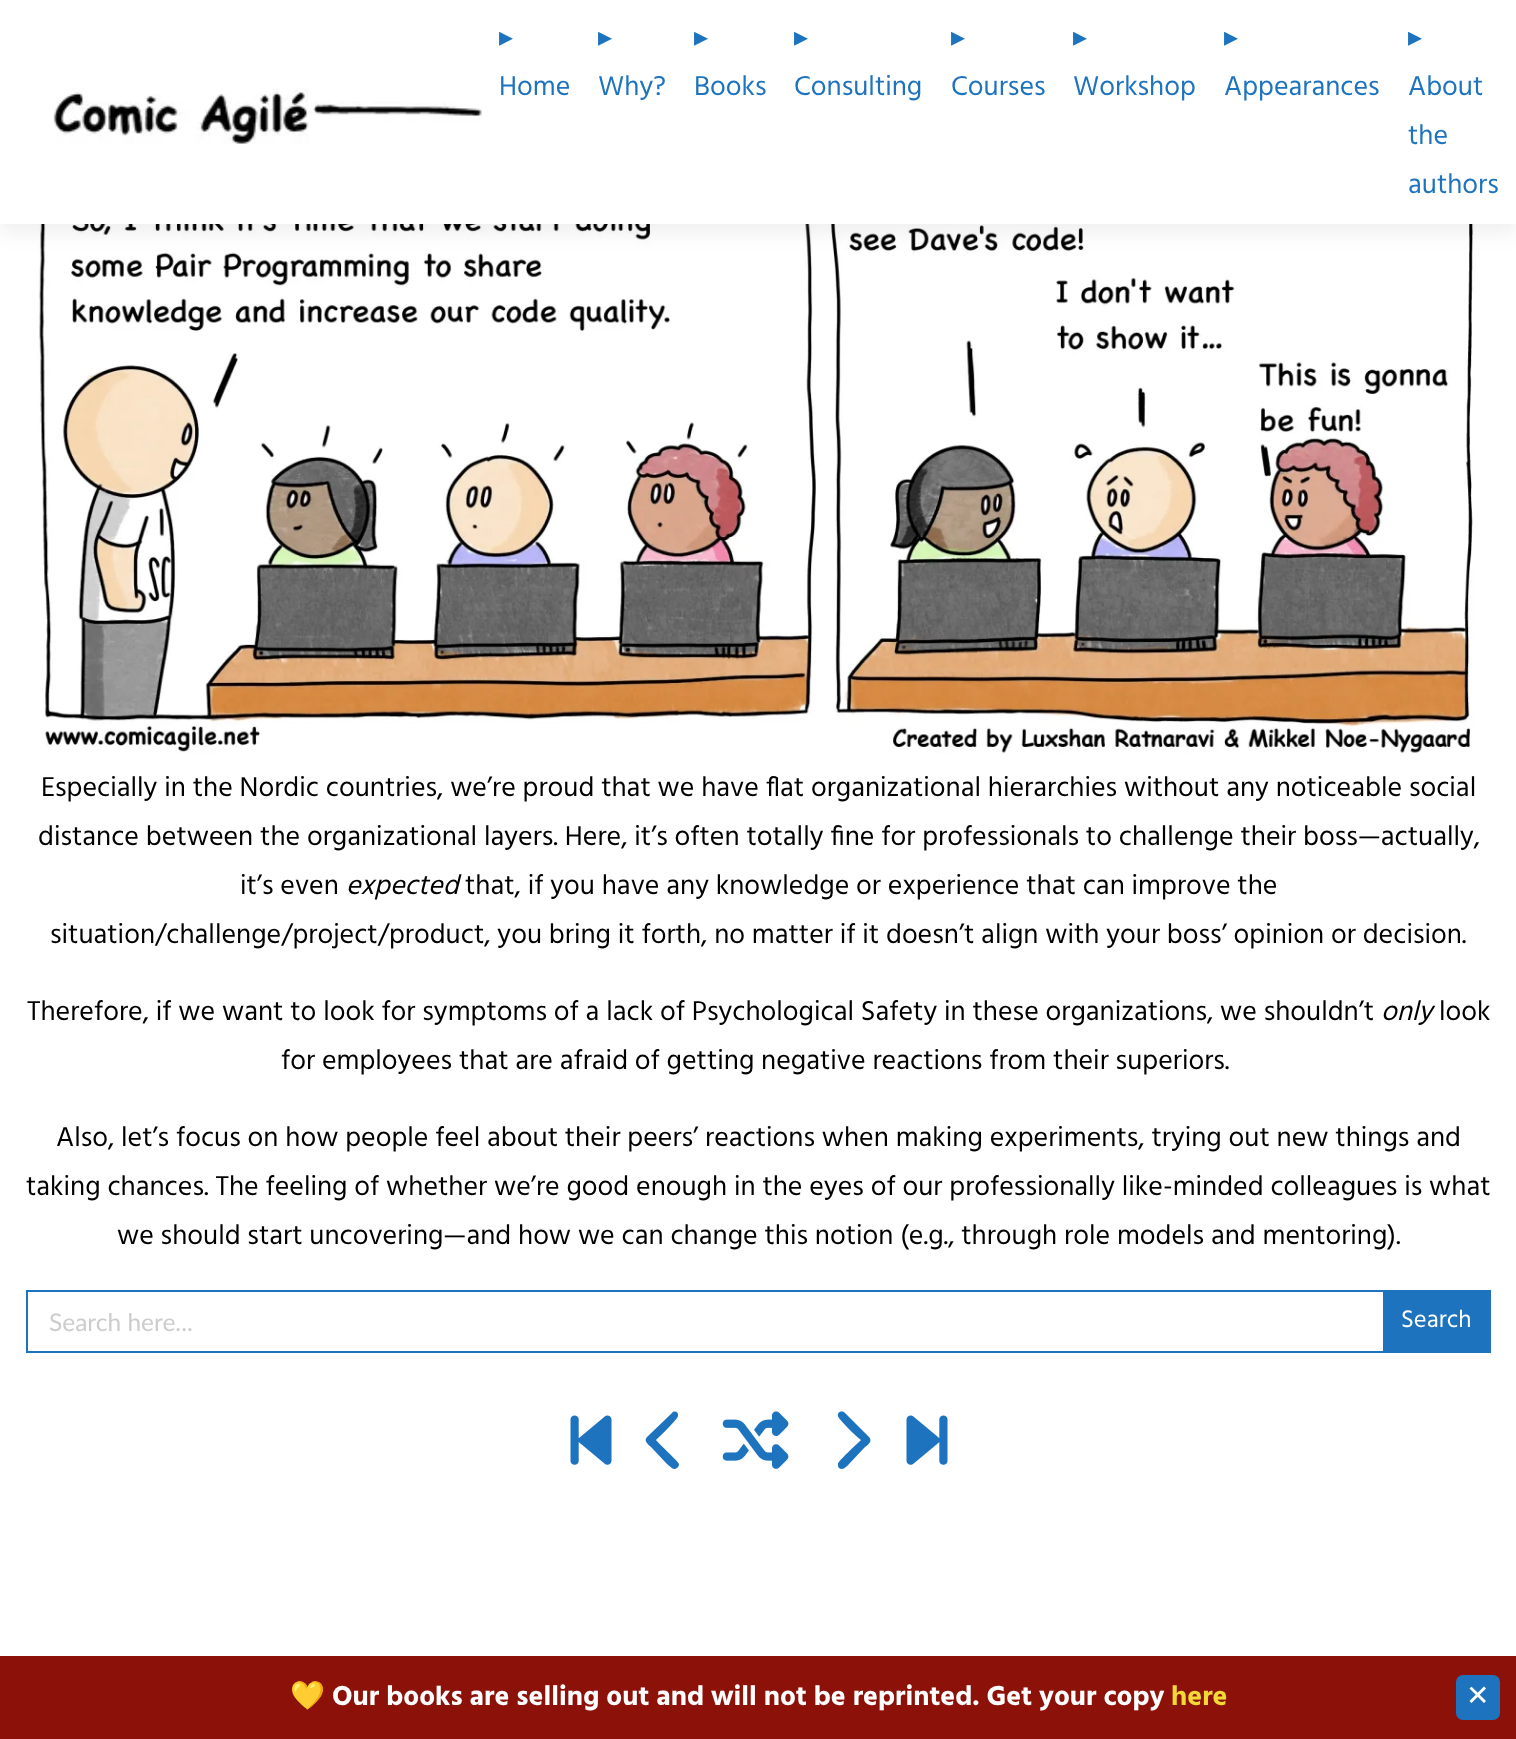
<svg xmlns="http://www.w3.org/2000/svg" width="1516" height="1739" viewBox="0 0 1516 1739">
  <rect width="100%" height="100%" fill="rgb(255,255,255)"/>
  <image x="38" y="224" width="1438" height="530" href="pic2.png"/>
  <rect x="0" y="9" width="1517" height="224" fill="rgba(50,50,50,0.08)" filter="blur(9.5px)"/>
  <rect x="0" y="0" width="1516" height="224" fill="rgb(255,255,255)"/>
  <image x="53" y="88" width="429" height="56" href="pic1.png"/>
  <text x="499" y="46" font-family="DejaVu Sans" font-size="28" fill="rgb(30,115,190)">▸</text>
  <text x="499" y="95" font-family="Hind" font-size="28" fill="rgb(30,115,190)">Home</text>
  <text x="598" y="46" font-family="DejaVu Sans" font-size="28" fill="rgb(30,115,190)">▸</text>
  <text x="598" y="95" font-family="Hind" font-size="28" fill="rgb(30,115,190)">Why?</text>
  <text x="694" y="46" font-family="DejaVu Sans" font-size="28" fill="rgb(30,115,190)">▸</text>
  <text x="694" y="95" font-family="Hind" font-size="28" fill="rgb(30,115,190)">Books</text>
  <text x="794" y="46" font-family="DejaVu Sans" font-size="28" fill="rgb(30,115,190)">▸</text>
  <text x="794" y="95" font-family="Hind" font-size="28" fill="rgb(30,115,190)">Consulting</text>
  <text x="951" y="46" font-family="DejaVu Sans" font-size="28" fill="rgb(30,115,190)">▸</text>
  <text x="951" y="95" font-family="Hind" font-size="28" fill="rgb(30,115,190)">Courses</text>
  <text x="1073" y="46" font-family="DejaVu Sans" font-size="28" fill="rgb(30,115,190)">▸</text>
  <text x="1073" y="95" font-family="Hind" font-size="28" fill="rgb(30,115,190)">Workshop</text>
  <text x="1224" y="46" font-family="DejaVu Sans" font-size="28" fill="rgb(30,115,190)">▸</text>
  <text x="1224" y="95" font-family="Hind" font-size="28" fill="rgb(30,115,190)">Appearances</text>
  <text x="1408" y="46" font-family="DejaVu Sans" font-size="28" fill="rgb(30,115,190)">▸</text>
  <g font-family="Hind" font-size="28" fill="rgb(30,115,190)">
    <text>
      <tspan x="1408" y="95">About</tspan>
      <tspan x="1408" y="144">the</tspan>
      <tspan x="1408" y="193">authors</tspan>
    </text>
  </g>
  <g font-family="Hind" font-size="28" fill="rgb(0,0,0)">
    <text x="41" y="796">Especially in the Nordic countries, we’re proud that we have flat organizational hierarchies without any noticeable social</text>
    <text x="38" y="845">distance between the organizational layers. Here, it’s often totally fine for professionals to challenge their boss—actually,</text>
    <text x="240" y="894">it’s even</text>
  </g>
  <text x="346" y="894" font-family="Hind" font-size="28" font-style="italic" fill="rgb(0,0,0)">expected</text>
  <g font-family="Hind" font-size="28" fill="rgb(0,0,0)">
    <text x="465" y="894">that, if you have any knowledge or experience that can improve the</text>
    <text x="50" y="943">situation/challenge/project/product, you bring it forth, no matter if it doesn’t align with your boss’ opinion or decision.</text>
    <text x="27" y="1020">Therefore, if we want to look for symptoms of a lack of Psychological Safety in these organizations, we shouldn’t</text>
  </g>
  <text x="1381" y="1020" font-family="Hind" font-size="28" font-style="italic" fill="rgb(0,0,0)">only</text>
  <g font-family="Hind" font-size="28" fill="rgb(0,0,0)">
    <text x="1439" y="1020">look</text>
    <text x="281" y="1069">for employees that are afraid of getting negative reactions from their superiors.</text>
    <text x="56" y="1146">Also, let’s focus on how people feel about their peers’ reactions when making experiments, trying out new things and</text>
    <text x="26" y="1195">taking chances. The feeling of whether we’re good enough in the eyes of our professionally like-minded colleagues is what</text>
    <text x="117" y="1244">we should start uncovering—and how we can change this notion (e.g., through role models and mentoring).</text>
  </g>
  <rect x="27" y="1291" width="1463" height="61" fill="none" stroke="rgb(30,115,190)" stroke-width="2"/>
  <text x="49" y="1331" font-family="Lato" font-size="24.5" fill="rgb(204,204,204)">Search here...</text>
  <rect x="1383" y="1292" width="106" height="59" fill="rgb(30,115,190)"/>
  <text x="1401" y="1327" font-family="Hind" font-size="24.5" fill="rgb(255,255,255)">Search</text>
  <image x="570" y="1415" width="42" height="50" href="pic3.png"/>
  <path d="M647 1437C643 1441 649 1445 651 1447L667 1464C670 1466 673 1471 677 1468C678 1467 679 1466 679 1464C678 1461 659 1444 656 1440C659 1437 678 1419 678 1416C679 1412 674 1410 672 1413Z" fill="rgb(30,115,190)"/>
  <image x="722" y="1411" width="67" height="58" href="pic4.png"/>
  <path d="M869 1437C873 1441 868 1445 865 1447L849 1464C847 1466 843 1471 839 1468C838 1467 838 1466 838 1464C838 1461 857 1444 861 1440C857 1437 838 1419 838 1416C837 1412 842 1410 845 1413Z" fill="rgb(30,115,190)"/>
  <image x="906" y="1415" width="42" height="50" href="pic5.png"/>
  <rect x="0" y="1656" width="1516" height="83" fill="rgb(140,17,8)"/>
  <text x="290" y="1705" font-family="Noto Color Emoji" font-size="28" font-weight="bold" fill="rgb(255,255,255)">💛</text>
  <text x="332" y="1705" font-family="Hind" font-size="28" font-weight="bold" fill="rgb(255,255,255)">Our books are selling out and will not be reprinted. Get your copy</text>
  <text x="1171" y="1705" font-family="Hind" font-size="28" font-weight="bold" fill="rgb(242,217,54)">here</text>
  <rect x="1457" y="1676" width="42" height="43" rx="6" fill="rgb(30,115,190)" stroke="rgb(30,115,190)" stroke-width="2"/>
  <text x="1466" y="1705" font-family="DejaVu Sans" font-size="28" fill="rgb(255,255,255)">✕</text>
</svg>
